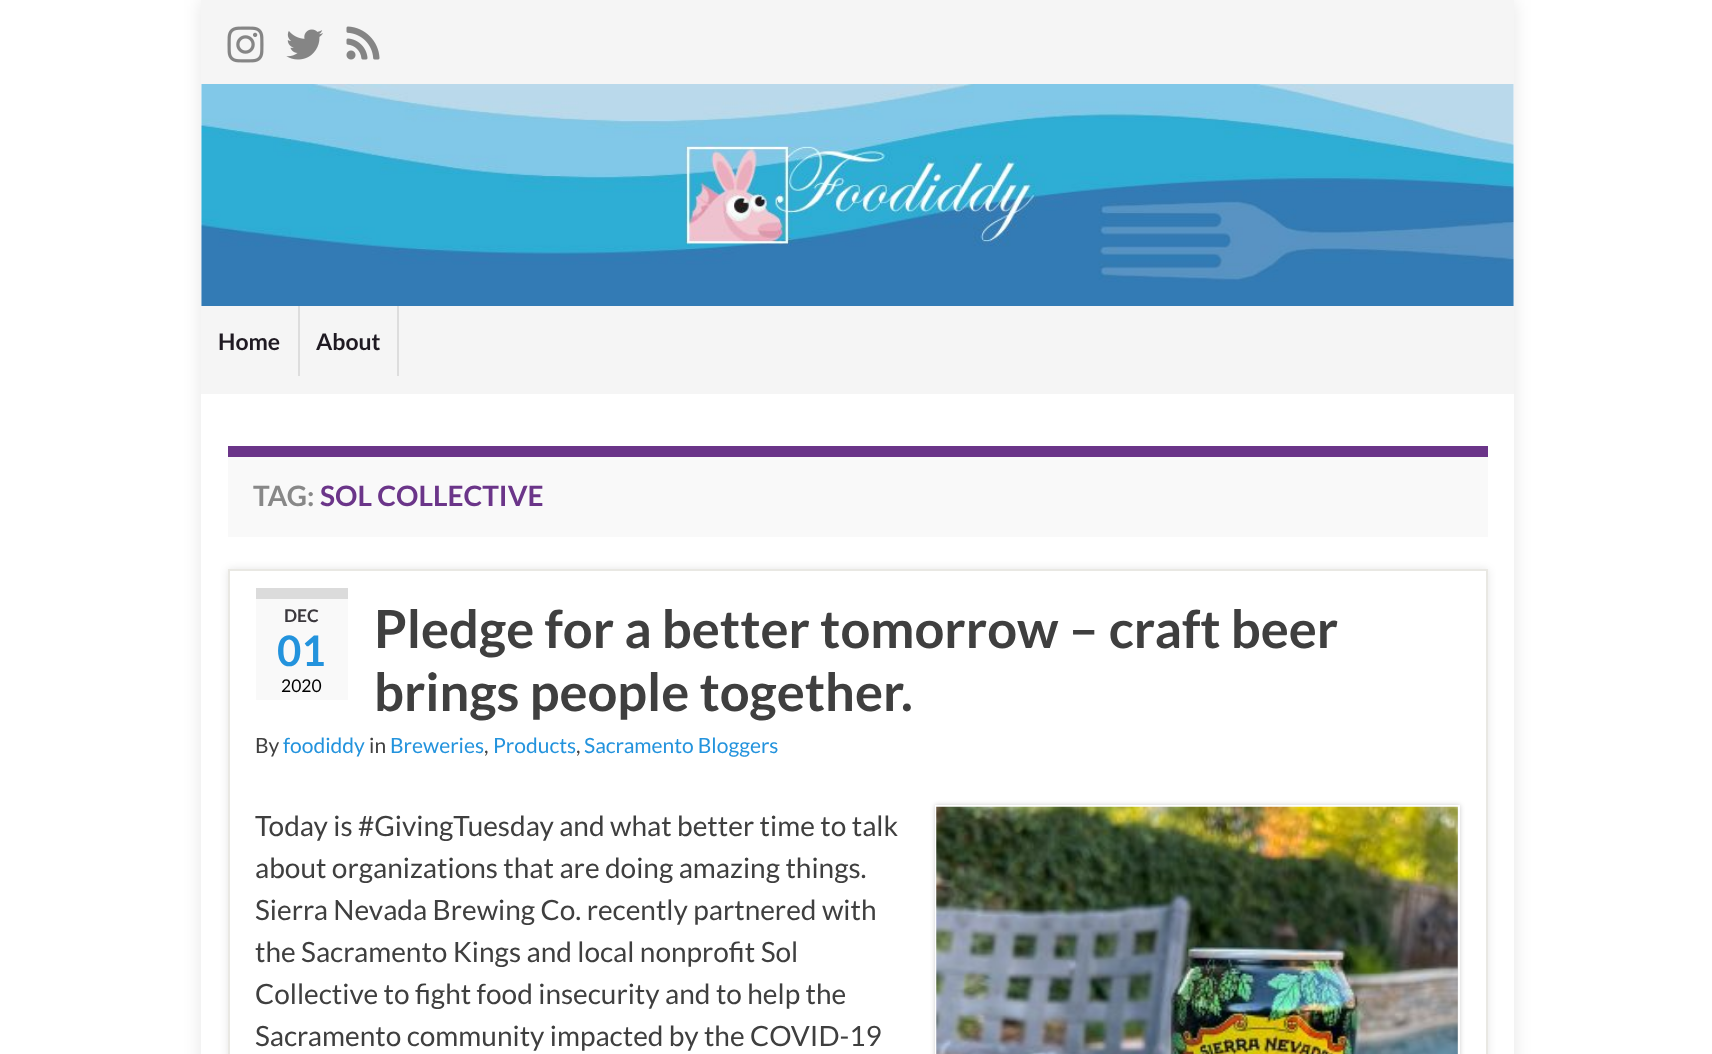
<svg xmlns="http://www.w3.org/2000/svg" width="1712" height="1054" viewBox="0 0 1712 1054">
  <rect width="100%" height="100%" fill="rgb(255,255,255)"/>
  <rect x="201" y="0" width="1313" height="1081" fill="rgba(0,0,0,0.1)" filter="blur(9px)"/>
  <rect x="201" y="0" width="1313" height="84" fill="rgb(245,245,245)"/>
  <image x="227" y="26" width="37" height="37" href="pic1.png"/>
  <image x="286" y="29" width="37" height="31" href="pic2.png"/>
  <image x="346" y="26" width="34" height="34" href="pic3.png"/>
  <rect x="201" y="84" width="1313" height="222" fill="rgb(255,255,255)"/>
  <image x="201" y="84" width="1313" height="222" href="pic4.png"/>
  <rect x="201" y="306" width="1313" height="88" fill="rgb(245,245,245)"/>
  <rect x="298" y="306" width="2" height="70" fill="rgb(221,221,221)"/>
  <text x="218" y="350" font-family="Lato" font-size="23" font-weight="bold" fill="rgb(31,26,34)">Home</text>
  <rect x="397" y="306" width="2" height="70" fill="rgb(221,221,221)"/>
  <text x="316" y="350" font-family="Lato" font-size="23" font-weight="bold" fill="rgb(31,26,34)">About</text>
  <rect x="201" y="394" width="1313" height="660" fill="rgb(255,255,255)"/>
  <rect x="228" y="457" width="1260" height="80" fill="rgb(249,249,249)"/>
  <rect x="228" y="446" width="1260" height="11" fill="rgb(107,53,137)"/>
  <text x="253" y="506" font-family="Lato" font-size="28" font-weight="bold" fill="rgb(136,136,136)">TAG:</text>
  <text x="320" y="506" font-family="Lato" font-size="28" font-weight="bold" fill="rgb(107,53,137)">SOL COLLECTIVE</text>
  <rect x="228" y="569" width="1260" height="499" fill="rgba(0,0,0,0.1)" filter="blur(4.5px)"/>
  <rect x="229" y="570" width="1258" height="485" fill="rgb(255,255,255)" stroke="rgb(233,232,227)" stroke-width="2"/>
  <rect x="256" y="599" width="92" height="101" fill="rgb(249,249,249)"/>
  <rect x="256" y="588" width="92" height="11" fill="rgb(219,219,219)"/>
  <text x="284" y="622" font-family="Lato" font-size="17.5" font-weight="bold" fill="rgb(59,56,61)">DEC</text>
  <text x="277" y="666" font-family="Lato" font-size="42" font-weight="bold" fill="rgb(35,147,221)">01</text>
  <text x="281" y="692" font-family="Lato" font-size="17.5" fill="rgb(0,0,0)">2020</text>
  <g font-family="Lato" font-size="52.5" font-weight="bold" fill="rgb(63,63,63)">
    <text>
      <tspan x="374" y="648">Pledge for a better tomorrow – craft beer</tspan>
      <tspan x="374" y="711">brings people together.</tspan>
    </text>
  </g>
  <text x="255" y="753" font-family="Lato" font-size="21" fill="rgb(63,63,63)">By</text>
  <text x="283" y="753" font-family="Lato" font-size="21" fill="rgb(35,147,221)">foodiddy</text>
  <text x="369" y="753" font-family="Lato" font-size="21" fill="rgb(63,63,63)">in</text>
  <text x="390" y="753" font-family="Lato" font-size="21" fill="rgb(35,147,221)">Breweries</text>
  <text x="484" y="753" font-family="Lato" font-size="21" fill="rgb(63,63,63)">,</text>
  <text x="493" y="753" font-family="Lato" font-size="21" fill="rgb(35,147,221)">Products</text>
  <text x="576" y="753" font-family="Lato" font-size="21" fill="rgb(63,63,63)">,</text>
  <text x="584" y="753" font-family="Lato" font-size="21" fill="rgb(35,147,221)">Sacramento Bloggers</text>
  <g font-family="Lato" font-size="28" fill="rgb(63,63,63)">
    <text>
      <tspan x="255" y="836">Today is #GivingTuesday and what better time to talk</tspan>
      <tspan x="255" y="878">about organizations that are doing amazing things.</tspan>
      <tspan x="255" y="920">Sierra Nevada Brewing Co. recently partnered with</tspan>
      <tspan x="255" y="962">the Sacramento Kings and local nonprofit Sol</tspan>
      <tspan x="255" y="1004">Collective to fight food insecurity and to help the</tspan>
      <tspan x="255" y="1046">Sacramento community impacted by the COVID-19</tspan>
    </text>
  </g>
  <rect x="935" y="805" width="525" height="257" fill="rgba(0,0,0,0.2)" filter="blur(2.5px)"/>
  <rect x="936" y="806" width="523" height="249" fill="none" stroke="rgb(255,255,255)" stroke-width="2"/>
  <image x="936" y="806" width="522" height="248" href="pic5.png"/>
</svg>
